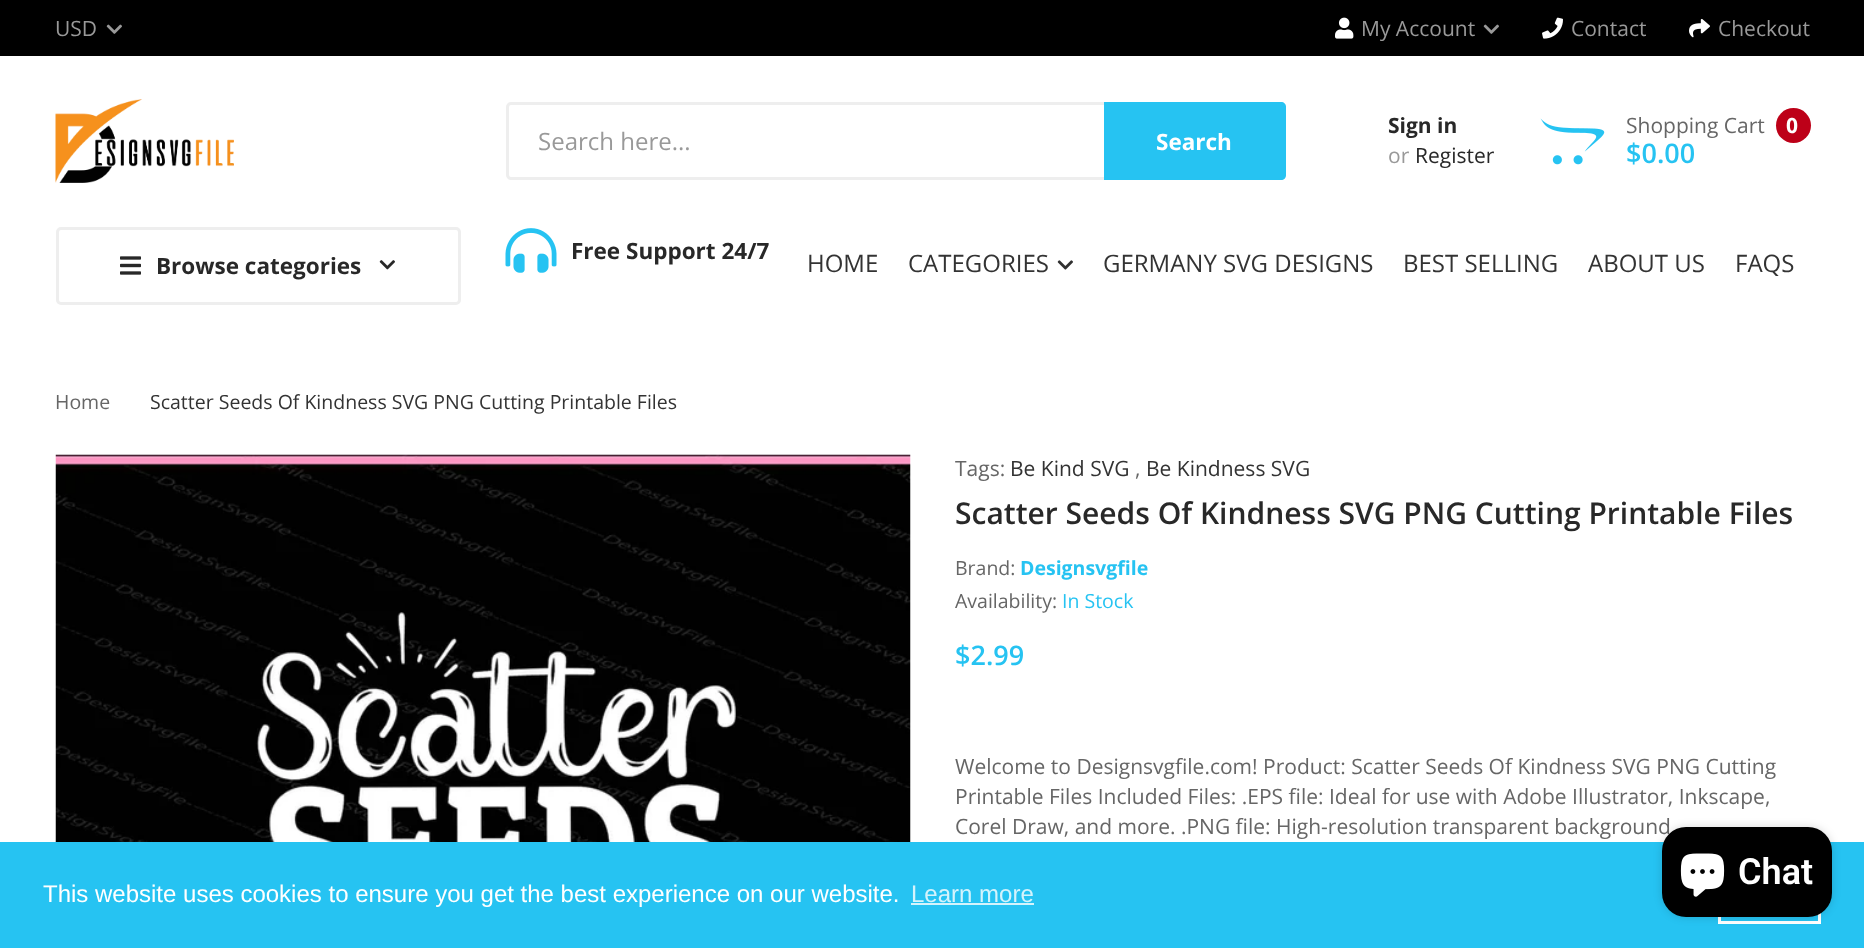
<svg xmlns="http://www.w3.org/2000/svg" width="1864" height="948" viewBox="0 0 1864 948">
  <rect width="100%" height="100%" fill="rgb(255,255,255)"/>
  <rect x="0" y="0" width="1864" height="56" fill="rgb(0,0,0)"/>
  <text x="55" y="36" font-family="Open Sans" font-size="21" fill="rgb(153,153,153)">USD</text>
  <image x="106" y="24" width="16" height="10" href="pic1.png"/>
  <image x="1335" y="17" width="19" height="22" href="pic2.png"/>
  <text x="1361" y="36" font-family="Open Sans" font-size="21" fill="rgb(153,153,153)">My Account</text>
  <image x="1483" y="24" width="16" height="10" href="pic1.png"/>
  <image x="1542" y="17" width="21" height="22" href="pic3.png"/>
  <text x="1571" y="36" font-family="Open Sans" font-size="21" fill="rgb(153,153,153)">Contact</text>
  <image x="1689" y="18" width="21" height="20" href="pic4.png"/>
  <text x="1718" y="36" font-family="Open Sans" font-size="21" fill="rgb(153,153,153)">Checkout</text>
  <rect x="507.5" y="103.5" width="777" height="75" rx="3.5" fill="none" stroke="rgb(238,238,238)" stroke-width="3"/>
  <text x="538" y="150" font-family="Open Sans" font-size="24" fill="rgb(153,153,153)">Search here...</text>
  <path d="M1104 102H1281C1284 102 1286 104 1286 107V175C1286 178 1284 180 1281 180H1104Z" fill="rgb(38,195,242)"/>
  <text x="1156" y="150" font-family="Open Sans" font-size="22.5" font-weight="bold" fill="rgb(255,255,255)">Search</text>
  <image x="55" y="99" width="179" height="84" href="pic5.png"/>
  <text x="1388" y="133" font-family="Open Sans" font-size="21" font-weight="bold" fill="rgb(40,40,40)">Sign in</text>
  <text x="1388" y="163" font-family="Open Sans" font-size="21" fill="rgb(153,153,153)">or</text>
  <text x="1415" y="163" font-family="Open Sans" font-size="21" fill="rgb(40,40,40)">Register</text>
  <image x="1540" y="118" width="65" height="47" href="pic6.png"/>
  <text x="1626" y="133" font-family="Open Sans" font-size="21" fill="rgb(102,102,102)">Shopping Cart</text>
  <circle cx="1793.5" cy="125.5" r="17.5" fill="rgb(189,0,24)"/>
  <text x="1786" y="133" font-family="Open Sans" font-size="21" font-weight="bold" fill="rgb(255,255,255)">0</text>
  <text x="1626" y="163" font-family="Open Sans" font-size="27" font-weight="600" fill="rgb(38,195,242)">$0.00</text>
  <rect x="57.5" y="228.5" width="402" height="75" rx="3.5" fill="none" stroke="rgb(238,238,238)" stroke-width="3"/>
  <image x="120" y="256" width="21" height="19" href="pic7.png"/>
  <text x="156" y="274" font-family="Open Sans" font-size="22.5" font-weight="bold" fill="rgb(40,40,40)">Browse categories</text>
  <image x="379" y="260" width="16" height="10" href="pic8.png"/>
  <image x="505" y="228" width="52" height="45" href="pic9.png"/>
  <text x="571" y="259" font-family="Open Sans" font-size="22.5" font-weight="bold" fill="rgb(40,40,40)">Free Support 24/7</text>
  <g font-family="Open Sans" font-size="24" fill="rgb(51,51,51)">
    <text x="807" y="272">HOME</text>
    <text x="908" y="272">CATEGORIES</text>
  </g>
  <image x="1057" y="260" width="16" height="10" href="pic10.png"/>
  <g font-family="Open Sans" font-size="24" fill="rgb(51,51,51)">
    <text x="1103" y="272">GERMANY SVG DESIGNS</text>
    <text x="1403" y="272">BEST SELLING</text>
    <text x="1588" y="272">ABOUT US</text>
    <text x="1735" y="272">FAQS</text>
  </g>
  <text x="55" y="409" font-family="Open Sans" font-size="19.5" fill="rgb(102,102,102)">Home</text>
  <text x="150" y="409" font-family="Open Sans" font-size="19.5" fill="rgb(51,51,51)">Scatter Seeds Of Kindness SVG PNG Cutting Printable Files</text>
  <image x="55" y="454" width="856" height="388" href="pic11.png"/>
  <text x="955" y="476" font-family="Open Sans" font-size="21" fill="rgb(102,102,102)">Tags:</text>
  <text x="1010" y="476" font-family="Open Sans" font-size="21" fill="rgb(51,51,51)">Be Kind SVG</text>
  <text x="1135" y="476" font-family="Open Sans" font-size="21" fill="rgb(102,102,102)">,</text>
  <text x="1146" y="476" font-family="Open Sans" font-size="21" fill="rgb(51,51,51)">Be Kindness SVG</text>
  <text x="955" y="524" font-family="Open Sans" font-size="30" font-weight="600" fill="rgb(40,40,40)">Scatter Seeds Of Kindness SVG PNG Cutting Printable Files</text>
  <text x="955" y="575" font-family="Open Sans" font-size="19.5" fill="rgb(102,102,102)">Brand:</text>
  <text x="1020" y="575" font-family="Open Sans" font-size="19.5" font-weight="bold" fill="rgb(38,195,242)">Designsvgfile</text>
  <text x="955" y="608" font-family="Open Sans" font-size="19.5" fill="rgb(102,102,102)">Availability:</text>
  <text x="1062" y="608" font-family="Open Sans" font-size="19.5" fill="rgb(38,195,242)">In Stock</text>
  <text x="955" y="665" font-family="Open Sans" font-size="27" font-weight="600" fill="rgb(38,195,242)">$2.99</text>
  <g font-family="Open Sans" font-size="21" fill="rgb(102,102,102)">
    <text>
      <tspan x="955" y="774">Welcome to Designsvgfile.com! Product: Scatter Seeds Of Kindness SVG PNG Cutting</tspan>
      <tspan x="955" y="804">Printable Files Included Files: .EPS file: Ideal for use with Adobe Illustrator, Inkscape,</tspan>
      <tspan x="955" y="834">Corel Draw, and more. .PNG file: High-resolution transparent background</tspan>
    </text>
  </g>
  <rect x="0" y="842" width="1864" height="106" fill="rgb(38,195,242)"/>
  <rect x="1719.5" y="867.5" width="100" height="55" fill="none" stroke="rgb(255,255,255)" stroke-width="3"/>
  <rect x="1662" y="827" width="170" height="90" rx="24" fill="rgba(0,0,0,0.15)" filter="blur(4px)"/>
  <rect x="1662" y="827" width="170" height="90" rx="24" fill="rgb(0,0,0)"/>
  <image x="1680" y="853" width="45" height="44" href="pic12.png"/>
  <text x="1738" y="884" font-family="Roboto" font-size="36" font-weight="600" fill="rgb(255,255,255)">Chat</text>
  <text x="43" y="902" font-family="Liberation Sans" font-size="24" fill="rgb(255,255,255)">This website uses cookies to ensure you get the best experience on our website.</text>
  <text x="911" y="902" font-family="Liberation Sans" font-size="24" fill="rgb(212,243,252)">Learn more</text>
  <rect x="911" y="903" width="123" height="2" fill="rgb(212,243,252)"/>
</svg>
